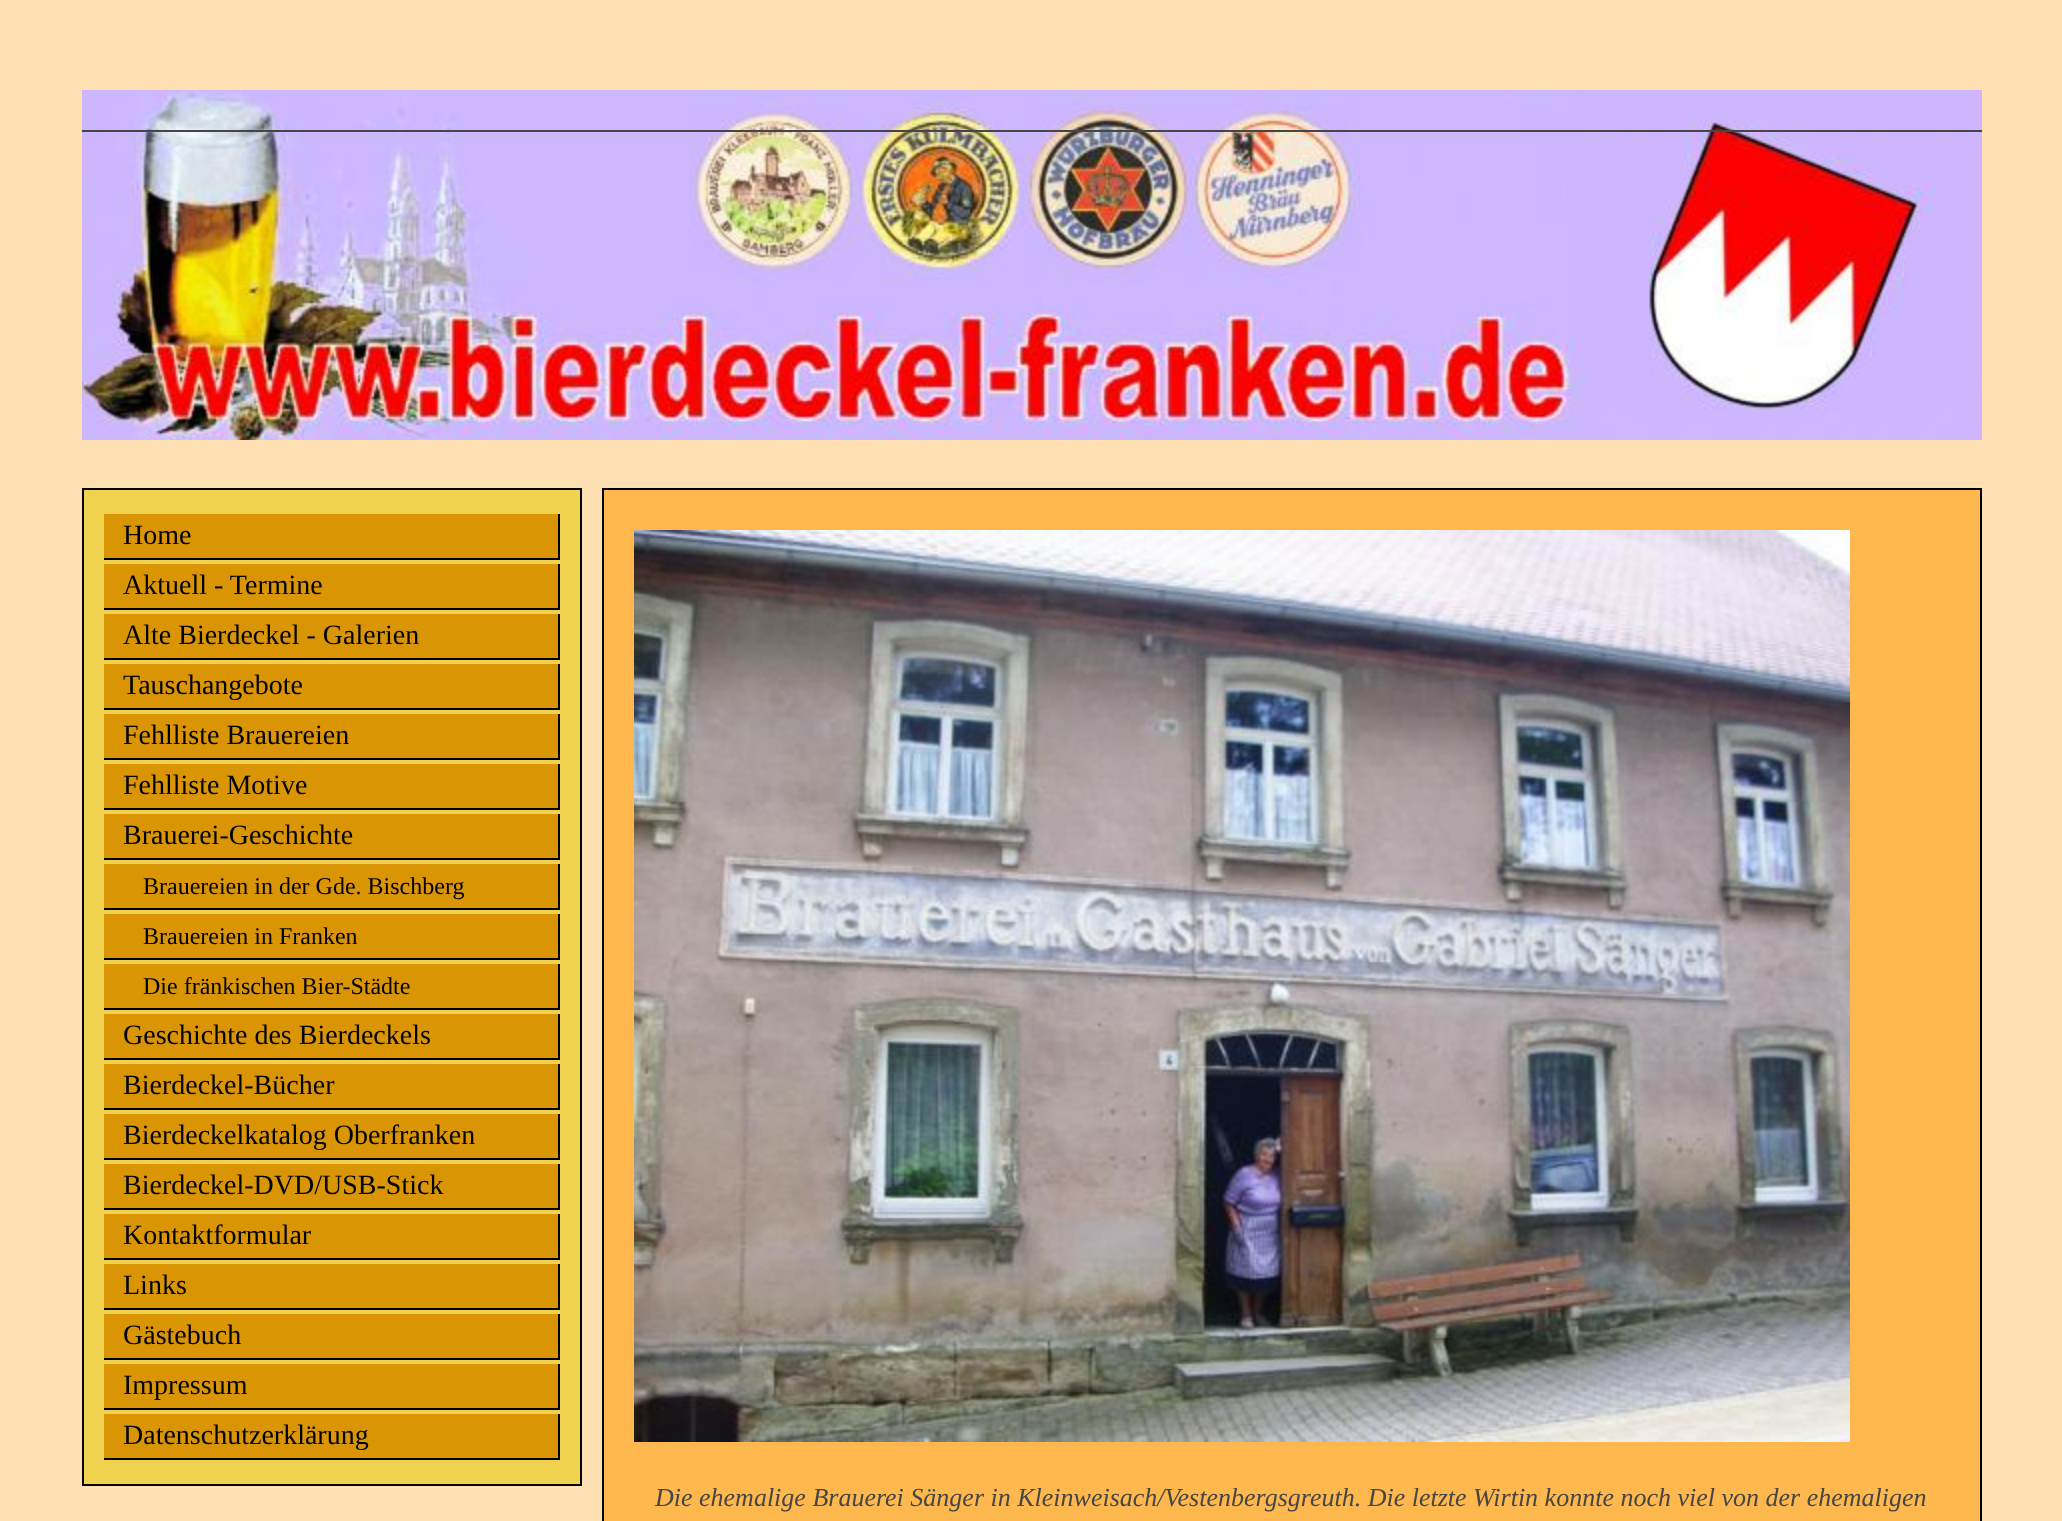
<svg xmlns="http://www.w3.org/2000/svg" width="2062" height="1521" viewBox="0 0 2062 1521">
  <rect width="100%" height="100%" fill="rgb(255,224,179)"/>
  <image x="82" y="90" width="1900" height="350" href="pic1.png"/>
  <rect x="82" y="130" width="1900" height="2" fill="rgb(70,70,70)"/>
  <rect x="83" y="489" width="498" height="996" fill="rgb(240,210,78)" stroke="rgb(0,0,0)" stroke-width="2"/>
  <rect x="104" y="514" width="454" height="44" fill="rgb(217,149,4)"/>
  <rect x="558" y="514" width="2" height="46" fill="rgb(0,0,0)"/>
  <rect x="104" y="558" width="456" height="2" fill="rgb(0,0,0)"/>
  <text x="123" y="544" font-family="Liberation Serif" font-size="28" fill="rgb(0,0,0)">Home</text>
  <rect x="104" y="564" width="454" height="44" fill="rgb(217,149,4)"/>
  <rect x="558" y="564" width="2" height="46" fill="rgb(0,0,0)"/>
  <rect x="104" y="608" width="456" height="2" fill="rgb(0,0,0)"/>
  <text x="123" y="594" font-family="Liberation Serif" font-size="28" fill="rgb(0,0,0)">Aktuell - Termine</text>
  <rect x="104" y="614" width="454" height="44" fill="rgb(217,149,4)"/>
  <rect x="558" y="614" width="2" height="46" fill="rgb(0,0,0)"/>
  <rect x="104" y="658" width="456" height="2" fill="rgb(0,0,0)"/>
  <text x="123" y="644" font-family="Liberation Serif" font-size="28" fill="rgb(0,0,0)">Alte Bierdeckel - Galerien</text>
  <rect x="104" y="664" width="454" height="44" fill="rgb(217,149,4)"/>
  <rect x="558" y="664" width="2" height="46" fill="rgb(0,0,0)"/>
  <rect x="104" y="708" width="456" height="2" fill="rgb(0,0,0)"/>
  <text x="123" y="694" font-family="Liberation Serif" font-size="28" fill="rgb(0,0,0)">Tauschangebote</text>
  <rect x="104" y="714" width="454" height="44" fill="rgb(217,149,4)"/>
  <rect x="558" y="714" width="2" height="46" fill="rgb(0,0,0)"/>
  <rect x="104" y="758" width="456" height="2" fill="rgb(0,0,0)"/>
  <text x="123" y="744" font-family="Liberation Serif" font-size="28" fill="rgb(0,0,0)">Fehlliste Brauereien</text>
  <rect x="104" y="764" width="454" height="44" fill="rgb(217,149,4)"/>
  <rect x="558" y="764" width="2" height="46" fill="rgb(0,0,0)"/>
  <rect x="104" y="808" width="456" height="2" fill="rgb(0,0,0)"/>
  <text x="123" y="794" font-family="Liberation Serif" font-size="28" fill="rgb(0,0,0)">Fehlliste Motive</text>
  <rect x="104" y="814" width="454" height="44" fill="rgb(217,149,4)"/>
  <rect x="558" y="814" width="2" height="46" fill="rgb(0,0,0)"/>
  <rect x="104" y="858" width="456" height="2" fill="rgb(0,0,0)"/>
  <text x="123" y="844" font-family="Liberation Serif" font-size="28" fill="rgb(0,0,0)">Brauerei-Geschichte</text>
  <rect x="104" y="864" width="454" height="44" fill="rgb(217,149,4)"/>
  <rect x="558" y="864" width="2" height="46" fill="rgb(0,0,0)"/>
  <rect x="104" y="908" width="456" height="2" fill="rgb(0,0,0)"/>
  <text x="143" y="894" font-family="Liberation Serif" font-size="24" fill="rgb(0,0,0)">Brauereien in der Gde. Bischberg</text>
  <rect x="104" y="914" width="454" height="44" fill="rgb(217,149,4)"/>
  <rect x="558" y="914" width="2" height="46" fill="rgb(0,0,0)"/>
  <rect x="104" y="958" width="456" height="2" fill="rgb(0,0,0)"/>
  <text x="143" y="944" font-family="Liberation Serif" font-size="24" fill="rgb(0,0,0)">Brauereien in Franken</text>
  <rect x="104" y="964" width="454" height="44" fill="rgb(217,149,4)"/>
  <rect x="558" y="964" width="2" height="46" fill="rgb(0,0,0)"/>
  <rect x="104" y="1008" width="456" height="2" fill="rgb(0,0,0)"/>
  <text x="143" y="994" font-family="Liberation Serif" font-size="24" fill="rgb(0,0,0)">Die fränkischen Bier-Städte</text>
  <rect x="104" y="1014" width="454" height="44" fill="rgb(217,149,4)"/>
  <rect x="558" y="1014" width="2" height="46" fill="rgb(0,0,0)"/>
  <rect x="104" y="1058" width="456" height="2" fill="rgb(0,0,0)"/>
  <text x="123" y="1044" font-family="Liberation Serif" font-size="28" fill="rgb(0,0,0)">Geschichte des Bierdeckels</text>
  <rect x="104" y="1064" width="454" height="44" fill="rgb(217,149,4)"/>
  <rect x="558" y="1064" width="2" height="46" fill="rgb(0,0,0)"/>
  <rect x="104" y="1108" width="456" height="2" fill="rgb(0,0,0)"/>
  <text x="123" y="1094" font-family="Liberation Serif" font-size="28" fill="rgb(0,0,0)">Bierdeckel-Bücher</text>
  <rect x="104" y="1114" width="454" height="44" fill="rgb(217,149,4)"/>
  <rect x="558" y="1114" width="2" height="46" fill="rgb(0,0,0)"/>
  <rect x="104" y="1158" width="456" height="2" fill="rgb(0,0,0)"/>
  <text x="123" y="1144" font-family="Liberation Serif" font-size="28" fill="rgb(0,0,0)">Bierdeckelkatalog Oberfranken</text>
  <rect x="104" y="1164" width="454" height="44" fill="rgb(217,149,4)"/>
  <rect x="558" y="1164" width="2" height="46" fill="rgb(0,0,0)"/>
  <rect x="104" y="1208" width="456" height="2" fill="rgb(0,0,0)"/>
  <text x="123" y="1194" font-family="Liberation Serif" font-size="28" fill="rgb(0,0,0)">Bierdeckel-DVD/USB-Stick</text>
  <rect x="104" y="1214" width="454" height="44" fill="rgb(217,149,4)"/>
  <rect x="558" y="1214" width="2" height="46" fill="rgb(0,0,0)"/>
  <rect x="104" y="1258" width="456" height="2" fill="rgb(0,0,0)"/>
  <text x="123" y="1244" font-family="Liberation Serif" font-size="28" fill="rgb(0,0,0)">Kontaktformular</text>
  <rect x="104" y="1264" width="454" height="44" fill="rgb(217,149,4)"/>
  <rect x="558" y="1264" width="2" height="46" fill="rgb(0,0,0)"/>
  <rect x="104" y="1308" width="456" height="2" fill="rgb(0,0,0)"/>
  <text x="123" y="1294" font-family="Liberation Serif" font-size="28" fill="rgb(0,0,0)">Links</text>
  <rect x="104" y="1314" width="454" height="44" fill="rgb(217,149,4)"/>
  <rect x="558" y="1314" width="2" height="46" fill="rgb(0,0,0)"/>
  <rect x="104" y="1358" width="456" height="2" fill="rgb(0,0,0)"/>
  <text x="123" y="1344" font-family="Liberation Serif" font-size="28" fill="rgb(0,0,0)">Gästebuch</text>
  <rect x="104" y="1364" width="454" height="44" fill="rgb(217,149,4)"/>
  <rect x="558" y="1364" width="2" height="46" fill="rgb(0,0,0)"/>
  <rect x="104" y="1408" width="456" height="2" fill="rgb(0,0,0)"/>
  <text x="123" y="1394" font-family="Liberation Serif" font-size="28" fill="rgb(0,0,0)">Impressum</text>
  <rect x="104" y="1414" width="454" height="44" fill="rgb(217,149,4)"/>
  <rect x="558" y="1414" width="2" height="46" fill="rgb(0,0,0)"/>
  <rect x="104" y="1458" width="456" height="2" fill="rgb(0,0,0)"/>
  <text x="123" y="1444" font-family="Liberation Serif" font-size="28" fill="rgb(0,0,0)">Datenschutzerklärung</text>
  <rect x="603" y="489" width="1378" height="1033" fill="rgb(255,184,77)" stroke="rgb(0,0,0)" stroke-width="2"/>
  <image x="634" y="530" width="1216" height="912" href="pic2.png"/>
  <text x="655" y="1506" font-family="Liberation Serif" font-size="26" font-style="italic" fill="rgb(70,70,70)">Die ehemalige Brauerei Sänger in Kleinweisach/Vestenbergsgreuth. Die letzte Wirtin konnte noch viel von der ehemaligen</text>
</svg>
